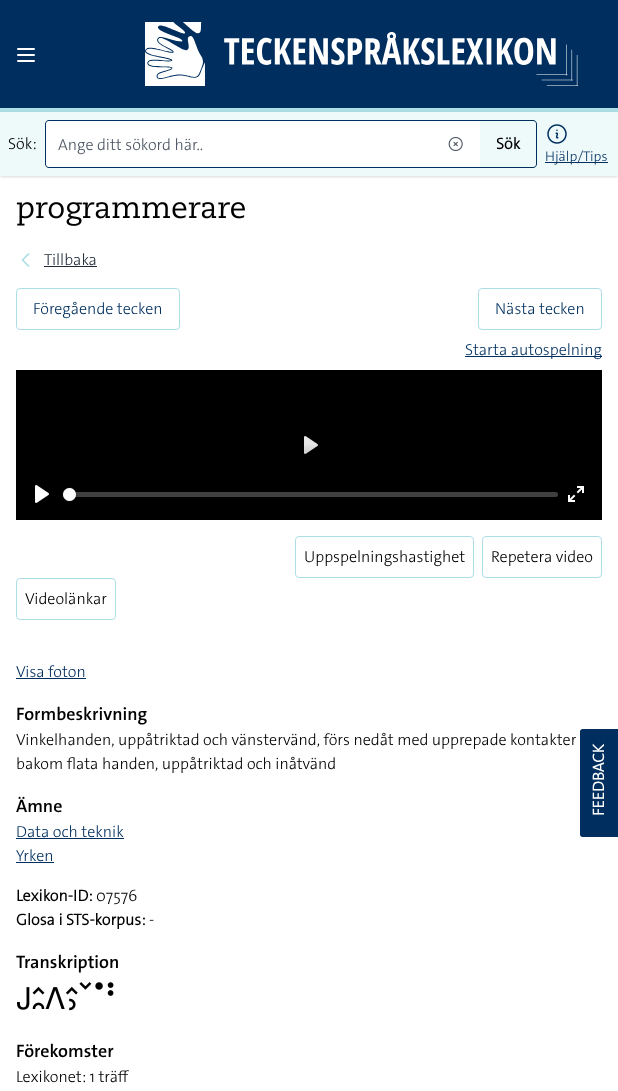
<svg xmlns="http://www.w3.org/2000/svg" width="618" height="1091" viewBox="0 0 618 1091">
  <defs>
    <linearGradient id="g1" gradientUnits="userSpaceOnUse" x1="309" y1="443" x2="309" y2="520"><stop offset="0" stop-color="rgb(0,0,0)" stop-opacity="0"/><stop offset="1" stop-color="rgb(0,0,0)" stop-opacity="0.75"/></linearGradient>
  </defs>
  <rect width="100%" height="100%" fill="rgb(255,255,255)"/>
  <rect x="0" y="0" width="618" height="108" fill="rgb(0,47,95)"/>
  <rect x="0" y="108" width="618" height="4" fill="rgb(172,222,230)"/>
  <path d="M18 49H34M18 55H34M18 61H34" fill="none" stroke="rgb(255,255,255)" stroke-width="2" stroke-linecap="round" stroke-linejoin="round"/>
  <image x="145" y="22" width="433" height="64" href="pic1.png"/>
  <rect x="1" y="114" width="616" height="62" fill="rgba(0,0,0,0.1)" filter="blur(1px)"/>
  <rect x="0" y="113" width="618" height="64" fill="rgba(0,0,0,0.1)" filter="blur(1.5px)"/>
  <rect x="0" y="112" width="618" height="64" fill="rgb(238,249,250)"/>
  <text x="8" y="149" font-family="'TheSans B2'" font-size="16" font-weight="300" fill="rgb(0,0,0)">Sök:</text>
  <path d="M49 121H487V167H49C47.5 167 46 165.5 46 164V124C46 122.5 47.5 121 49 121Z" fill="rgb(255,255,255)"/>
  <path d="M49 120H487V168H49C47 168 45 166 45 164V124C45 122 47 120 49 120ZM49 121H487V167H49C47 167 46 166 46 164V124C46 122 47 121 49 121Z" fill="rgb(0,47,95)" fill-rule="evenodd"/>
  <text x="58" y="150" font-family="'TheSans B2'" font-size="16" font-weight="300" fill="rgb(75,85,99)">Ange ditt sökord här..</text>
  <image x="448" y="136" width="15" height="16" href="pic2.png"/>
  <path d="M480 121H533C534.5 121 536 122.5 536 124V164C536 165.5 534.5 167 533 167H480Z" fill="rgb(238,249,250)"/>
  <path d="M480 120H533C535 120 537 122 537 124V164C537 166 535 168 533 168H480ZM480 121H533C535 121 536 122 536 124V164C536 166 535 167 533 167H480Z" fill="rgb(0,47,95)" fill-rule="evenodd"/>
  <text x="496" y="149" font-family="'TheSans B2'" font-size="16" font-weight="bold" fill="rgb(0,0,0)">Sök</text>
  <image x="547" y="124" width="20" height="20" href="pic3.png"/>
  <rect x="545" y="162" width="63" height="1" fill="rgb(0,47,95)"/>
  <text x="545" y="161" font-family="'TheSans B2'" font-size="14" font-weight="300" fill="rgb(0,47,95)">Hjälp/Tips</text>
  <image x="16" y="202" width="229" height="24" href="pic4.png"/>
  <path d="M28.5 266L22.5 260L28.5 254" fill="none" stroke="rgb(172,222,230)" stroke-width="1.7" stroke-linecap="round" stroke-linejoin="round"/>
  <text x="44" y="265" font-family="'TheSans B2'" font-size="16" font-weight="300" fill="rgb(31,41,55)">Tillbaka</text>
  <rect x="44" y="266" width="53" height="1" fill="rgb(31,41,55)"/>
  <rect x="16.5" y="288.5" width="163" height="41" rx="3.5" fill="none" stroke="rgb(172,222,230)"/>
  <text x="33" y="314" font-family="'TheSans B2'" font-size="16" font-weight="300" fill="rgb(0,47,95)">Föregående tecken</text>
  <rect x="478.5" y="288.5" width="123" height="41" rx="3.5" fill="none" stroke="rgb(172,222,230)"/>
  <text x="495" y="314" font-family="'TheSans B2'" font-size="16" font-weight="300" fill="rgb(0,47,95)">Nästa tecken</text>
  <rect x="465" y="356" width="137" height="1" fill="rgb(0,47,95)"/>
  <text x="465" y="355" font-family="'TheSans B2'" font-size="16" font-weight="300" fill="rgb(0,47,95)">Starta autospelning</text>
  <rect x="16" y="370" width="586" height="150" fill="rgb(0,0,0)"/>
  <image x="62" y="487" width="15" height="15" href="pic5.png"/>
  <image x="304" y="436" width="14" height="18" href="pic6.png"/>
  <rect x="62" y="445" width="256" height="57" fill="url(#g1)"/>
  <image x="35" y="485" width="14" height="18" href="pic7.png"/>
  <rect x="63" y="492" width="495" height="5" rx="2.5" fill="rgba(255,255,255,0.25)"/>
  <circle cx="69.5" cy="494.5" r="7" fill="none" stroke="rgba(35,40,47,0.2)"/>
  <rect x="63" y="489" width="13" height="13" rx="6.5" fill="rgba(35,40,47,0.15)" filter="blur(0.5px)"/>
  <path d="M66.5 484.5H72.5L69.5 487.5Z" fill="rgb(0,0,0)"/>
  <circle cx="69.5" cy="494.5" r="6.5" fill="rgb(255,255,255)"/>
  <image x="568" y="486" width="16" height="16" href="pic8.png"/>
  <rect x="295.5" y="536.5" width="178" height="41" rx="3.5" fill="none" stroke="rgb(172,222,230)"/>
  <text x="304" y="562" font-family="'TheSans B2'" font-size="16" font-weight="300" fill="rgb(0,0,0)">Uppspelningshastighet</text>
  <rect x="482.5" y="536.5" width="119" height="41" rx="3.5" fill="none" stroke="rgb(172,222,230)"/>
  <text x="491" y="562" font-family="'TheSans B2'" font-size="16" font-weight="300" fill="rgb(0,0,0)">Repetera video</text>
  <rect x="16.5" y="578.5" width="99" height="41" rx="3.5" fill="none" stroke="rgb(172,222,230)"/>
  <text x="25" y="604" font-family="'TheSans B2'" font-size="16" font-weight="300" fill="rgb(0,0,0)">Videolänkar</text>
  <text x="16" y="677" font-family="'TheSans B2'" font-size="16" font-weight="300" fill="rgb(0,47,95)">Visa foton</text>
  <rect x="16" y="678" width="70" height="1" fill="rgb(0,47,95)"/>
  <text x="16" y="720" font-family="'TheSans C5'" font-size="18" font-weight="600" fill="rgb(0,0,0)">Formbeskrivning</text>
  <g font-family="'TheSans B2'" font-size="16" font-weight="300" fill="rgb(0,0,0)">
    <text>
      <tspan x="16" y="745">Vinkelhanden, uppåtriktad och vänstervänd, förs nedåt med upprepade kontakter</tspan>
      <tspan x="16" y="769">bakom flata handen, uppåtriktad och inåtvänd</tspan>
    </text>
  </g>
  <text x="16" y="812" font-family="'TheSans C5'" font-size="18" font-weight="600" fill="rgb(0,0,0)">Ämne</text>
  <text x="16" y="837" font-family="'TheSans B2'" font-size="16" font-weight="300" fill="rgb(0,47,95)">Data och teknik</text>
  <rect x="16" y="838" width="108" height="1" fill="rgb(0,47,95)"/>
  <text x="16" y="861" font-family="'TheSans B2'" font-size="16" font-weight="300" fill="rgb(0,47,95)">Yrken</text>
  <rect x="16" y="862" width="38" height="1" fill="rgb(0,47,95)"/>
  <text x="16" y="901" font-family="'TheSans B2'" font-size="16" font-weight="bold" fill="rgb(0,0,0)">Lexikon-ID:</text>
  <text x="96" y="901" font-family="'TheSans B2'" font-size="16" font-weight="300" fill="rgb(0,0,0)">07576</text>
  <text x="16" y="925" font-family="'TheSans B2'" font-size="16" font-weight="bold" fill="rgb(0,0,0)">Glosa i STS-korpus:</text>
  <text x="149" y="925" font-family="'TheSans B2'" font-size="16" font-weight="300" fill="rgb(0,0,0)">-</text>
  <text x="16" y="968" font-family="'TheSans C5'" font-size="18" font-weight="600" fill="rgb(0,0,0)">Transkription</text>
  <image x="17" y="982" width="97" height="29" href="pic9.png"/>
  <text x="16" y="1057" font-family="'TheSans C5'" font-size="18" font-weight="600" fill="rgb(0,0,0)">Förekomster</text>
  <text x="16" y="1082" font-family="'TheSans B2'" font-size="16" font-weight="300" fill="rgb(0,0,0)">Lexikonet: 1 träff</text>
  <path d="M582 729H618V837H582C581 837 580 836 580 835V731C580 730 581 729 582 729Z" fill="rgb(0,47,95)"/>
  <path d="M582 727H618V839H582C580 839 578 837 578 835V731C578 729 580 727 582 727ZM582 729H618V837H582C581 837 580 836 580 835V731C580 730 581 729 582 729Z" fill="rgb(255,255,255)" fill-rule="evenodd"/>
  <text x="604" y="816" transform="rotate(-90 604 816)" font-family="'TheSans B2'" font-size="16" font-weight="bold" fill="rgb(255,255,255)">FEEDBACK</text>
</svg>
